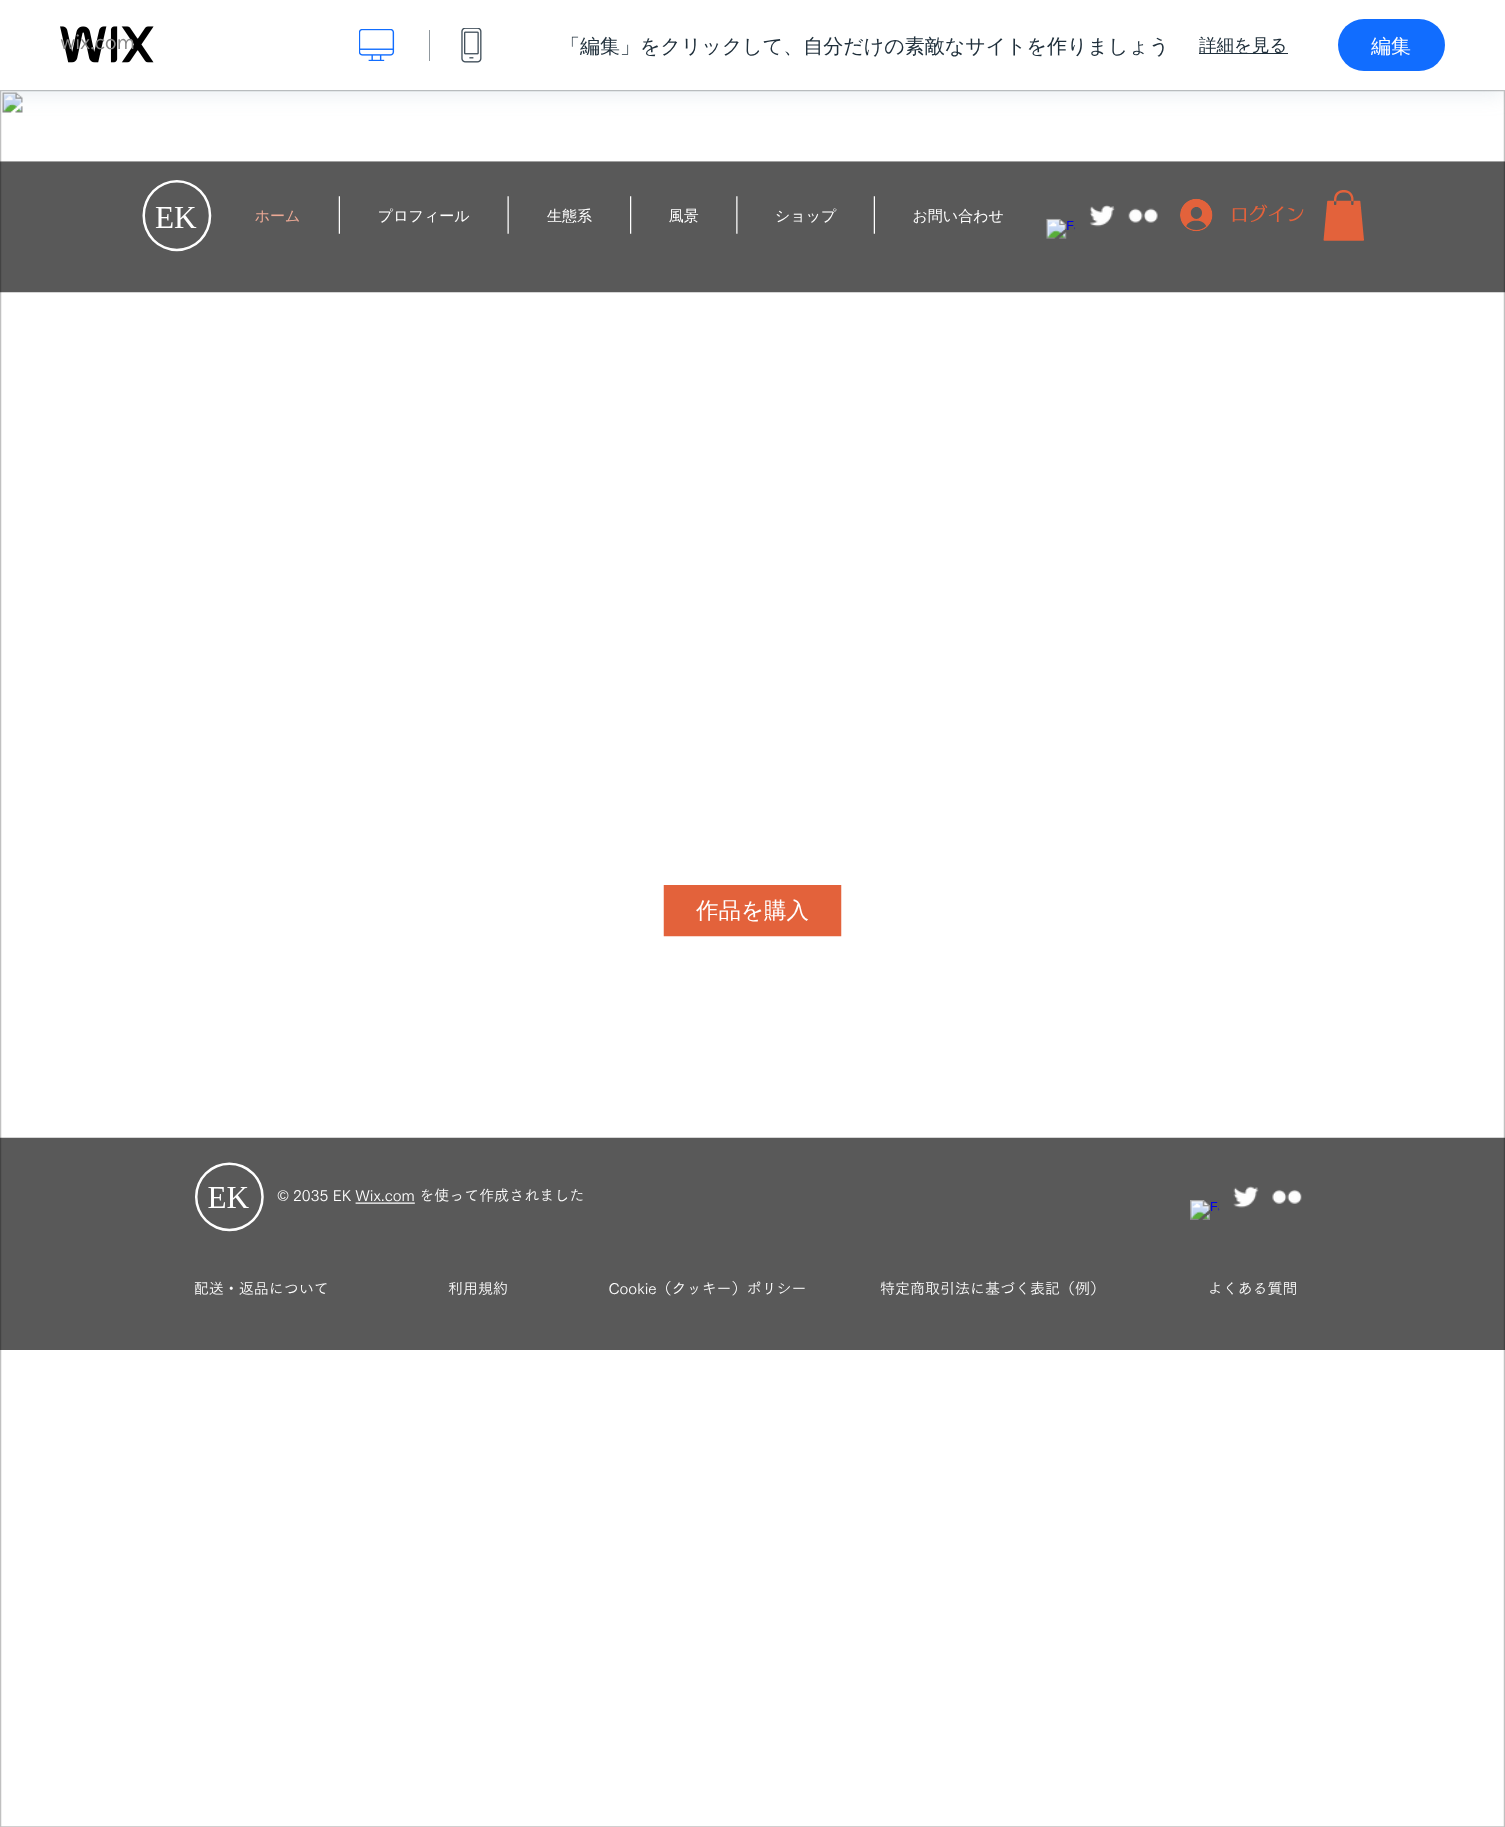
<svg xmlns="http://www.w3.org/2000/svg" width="1505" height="1827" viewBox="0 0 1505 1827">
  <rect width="100%" height="100%" fill="rgb(255,255,255)"/>
  <image x="0" y="90" width="1505" height="1737" href="pic4.png"/>
  <rect x="0" y="3" width="1505" height="90" fill="rgba(129,162,182,0.2)" filter="blur(11px)"/>
  <rect x="0" y="0" width="1505" height="90" fill="rgb(255,255,255)"/>
  <image x="60" y="26" width="94" height="37" href="pic1.png"/>
  <text x="60" y="49" font-family="Wix Madefor Text" font-size="20" fill="rgb(135,135,135)">wix.com</text>
  <image x="359" y="29" width="36" height="32" href="pic2.png"/>
  <rect x="429" y="30" width="1" height="31" fill="rgb(144,152,158)"/>
  <image x="461" y="28" width="21" height="35" href="pic3.png"/>
  <text x="560" y="53" font-family="WenQuanYi Zen Hei" font-size="20" font-weight="500" fill="rgb(32,48,60)">「編集」をクリックして、自分だけの素敵なサイトを作りましょう</text>
  <rect x="1199" y="53" width="89" height="1" fill="rgb(32,48,60)"/>
  <text x="1199" y="51" font-family="WenQuanYi Zen Hei" font-size="17.5" font-weight="500" fill="rgb(32,48,60)">詳細を見る</text>
  <rect x="1338" y="19" width="107" height="52" rx="26" fill="rgb(17,109,255)"/>
  <text x="1371" y="53" font-family="WenQuanYi Zen Hei" font-size="20" font-weight="500" fill="rgb(255,255,255)">編集</text>
</svg>
